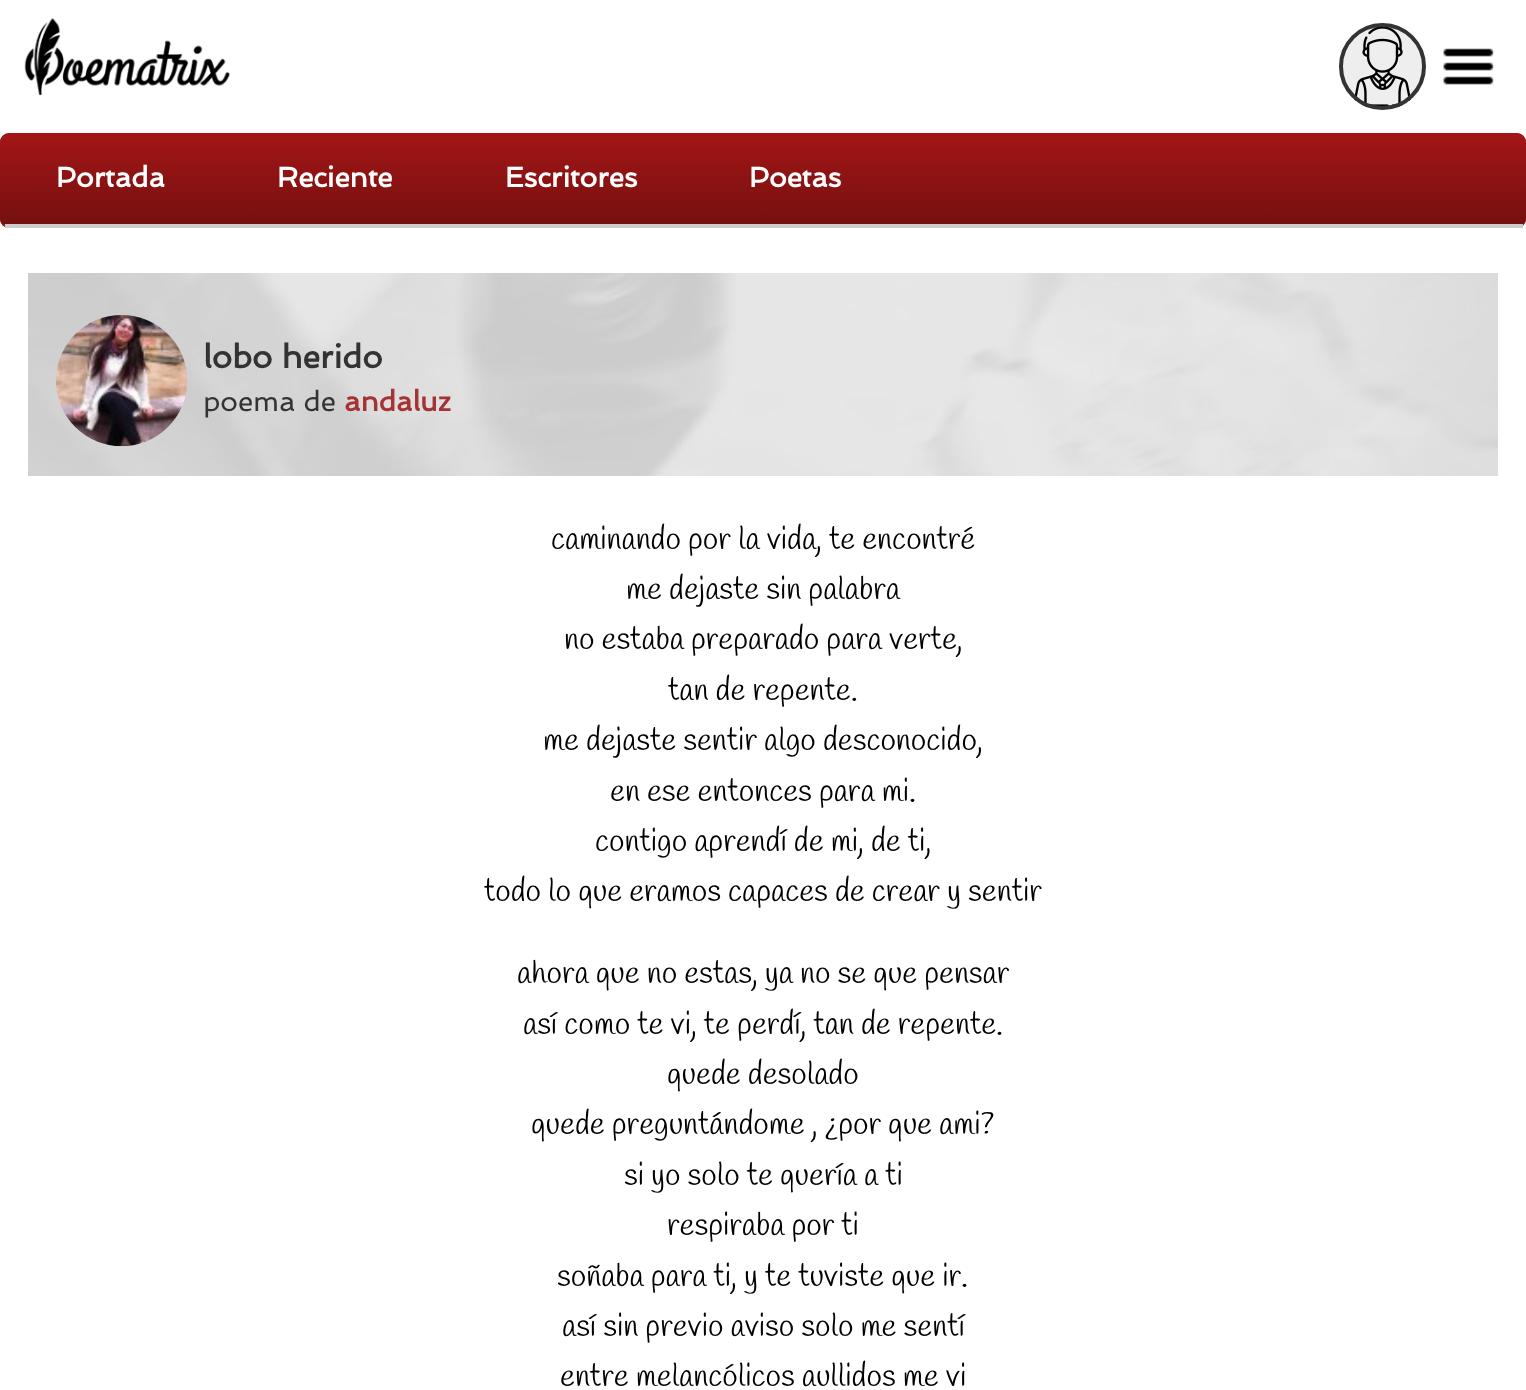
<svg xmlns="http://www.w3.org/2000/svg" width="1526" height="1390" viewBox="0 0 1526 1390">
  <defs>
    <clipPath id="clip1"><rect x="0" y="133" width="1526" height="95" rx="9"/></clipPath>
    <linearGradient id="g1" gradientUnits="userSpaceOnUse" x1="763" y1="133" x2="763" y2="224"><stop offset="0" stop-color="rgb(163,22,22)"/><stop offset="1" stop-color="rgb(118,16,16)"/></linearGradient>
    <linearGradient id="g2" gradientUnits="userSpaceOnUse" x1="763" y1="224" x2="763" y2="315"><stop offset="0" stop-color="rgb(163,22,22)"/><stop offset="1" stop-color="rgb(118,16,16)"/></linearGradient>
  </defs>
  <rect width="100%" height="100%" fill="rgb(255,255,255)"/>
  <image x="24" y="17" width="206" height="79" href="pic1.png"/>
  <image x="1443" y="48" width="51" height="37" href="pic2.png"/>
  <circle cx="1382.5" cy="66.5" r="43.5" fill="rgb(238,238,238)"/>
  <image x="1354" y="27" width="57" height="80" href="pic3.png"/>
  <circle cx="1382.5" cy="66.5" r="41.5" fill="none" stroke="rgb(51,51,51)" stroke-width="4"/>
  <rect x="0" y="133" width="1526" height="95" rx="9" fill="rgb(163,22,22)"/>
  <g clip-path="url(#clip1)">
    <path d="M9 133H1517C1522 133 1526 137 1526 142V224H0V142C0 137 4 133 9 133Z" fill="url(#g1)"/>
    <rect x="0" y="224" width="1526" height="3" fill="url(#g2)"/>
  </g>
  <rect x="5" y="224" width="1518" height="4" fill="rgb(204,204,204)"/>
  <g font-family="Spinnaker" font-size="28" font-weight="bold" fill="rgb(255,255,255)">
    <text x="56" y="187">Portada</text>
    <text x="277" y="187">Reciente</text>
    <text x="505" y="187">Escritores</text>
    <text x="749" y="187">Poetas</text>
  </g>
  <image x="28" y="273" width="1470" height="203" href="pic4.png"/>
  <image x="56" y="315" width="131" height="132" href="pic5.png"/>
  <text x="203" y="368" font-family="Spinnaker" font-size="32.25" font-weight="bold" fill="rgb(51,51,51)">lobo herido</text>
  <text x="203" y="411" font-family="Spinnaker" font-size="28" fill="rgb(51,51,51)">poema de</text>
  <text x="344" y="411" font-family="Spinnaker" font-size="28" font-weight="bold" fill="rgb(165,51,51)">andaluz</text>
  <g font-family="Handlee" font-size="31.5" fill="rgb(0,0,0)">
    <text x="551" y="549">caminando por la vida, te encontré</text>
    <text x="626" y="599">me dejaste sin palabra</text>
    <text x="564" y="649">no estaba preparado para verte,</text>
    <text x="668" y="700">tan de repente.</text>
    <text x="543" y="750">me dejaste sentir algo desconocido,</text>
    <text x="610" y="801">en ese entonces para mi.</text>
    <text x="595" y="851">contigo aprendí de mi, de ti,</text>
    <text x="484" y="901">todo lo que eramos capaces de crear y sentir</text>
    <text x="517" y="983">ahora que no estas, ya no se que pensar</text>
    <text x="523" y="1034">así como te vi, te perdí, tan de repente.</text>
    <text x="667" y="1084">quede desolado</text>
    <text x="531" y="1134">quede preguntándome , ¿por que ami?</text>
    <text x="624" y="1185">si yo solo te quería a ti</text>
    <text x="667" y="1235">respiraba por ti</text>
    <text x="557" y="1286">soñaba para ti, y te tuviste que ir.</text>
    <text x="562" y="1336">así sin previo aviso solo me sentí</text>
    <text x="560" y="1386">entre melancólicos aullidos me vi</text>
  </g>
</svg>
